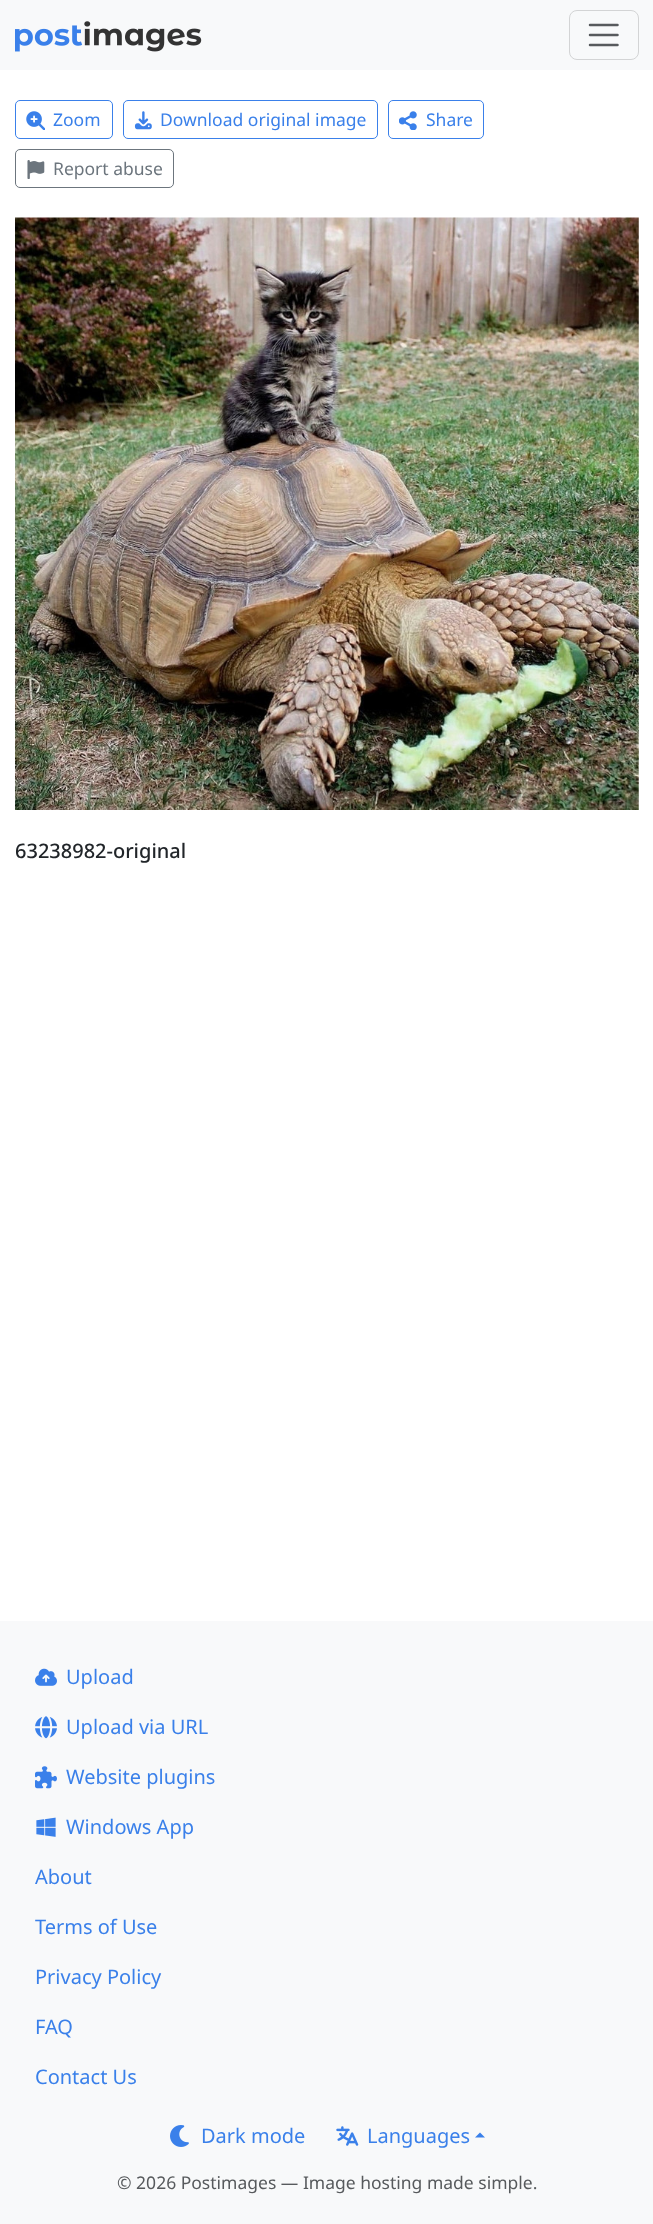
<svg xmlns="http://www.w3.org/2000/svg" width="653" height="2224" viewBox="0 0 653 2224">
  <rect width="100%" height="100%" fill="rgb(255,255,255)"/>
  <rect x="0" y="0" width="653" height="70" fill="rgb(248,249,250)"/>
  <image x="15" y="21" width="187" height="31" href="pic1.png"/>
  <rect x="569.5" y="10.5" width="69" height="49" rx="7.5" fill="none" stroke="rgb(211,212,213)"/>
  <path d="M590 25H617.5M590 35H617.5M590 45H617.5" fill="none" stroke="rgb(87,90,93)" stroke-width="2.5" stroke-linecap="round"/>
  <rect x="15.5" y="100.5" width="97" height="38" rx="4.5" fill="none" stroke="rgb(58,128,234)"/>
  <image x="26" y="111" width="19" height="19" href="pic2.png"/>
  <text x="53" y="126" font-family="Noto Sans" font-size="17.5" fill="rgb(58,128,234)">Zoom</text>
  <rect x="123.5" y="100.5" width="254" height="38" rx="4.5" fill="none" stroke="rgb(58,128,234)"/>
  <image x="134" y="111" width="18" height="19" href="pic3.png"/>
  <text x="160" y="126" font-family="Noto Sans" font-size="17.5" fill="rgb(58,128,234)">Download original image</text>
  <rect x="388.5" y="100.5" width="95" height="38" rx="4.5" fill="none" stroke="rgb(58,128,234)"/>
  <image x="399" y="111" width="18" height="19" href="pic4.png"/>
  <text x="426" y="126" font-family="Noto Sans" font-size="17.5" fill="rgb(58,128,234)">Share</text>
  <rect x="15.5" y="149.5" width="158" height="38" rx="4.5" fill="none" stroke="rgb(108,117,125)"/>
  <image x="27" y="160" width="18" height="19" href="pic5.png"/>
  <text x="53" y="175" font-family="Noto Sans" font-size="17.5" fill="rgb(108,117,125)">Report abuse</text>
  <image x="15" y="217" width="624" height="593" href="pic6.png"/>
  <text x="15" y="858" font-family="Noto Sans" font-size="20" font-weight="500" fill="rgb(33,37,41)">63238982-original</text>
  <rect x="0" y="1621" width="653" height="603" fill="rgb(248,249,250)"/>
  <image x="35" y="1668" width="22" height="18" href="pic7.png"/>
  <text x="66" y="1684" font-family="Noto Sans" font-size="20" fill="rgb(58,128,234)">Upload</text>
  <image x="35" y="1716" width="22" height="23" href="pic8.png"/>
  <text x="66" y="1734" font-family="Noto Sans" font-size="20" fill="rgb(58,128,234)">Upload via URL</text>
  <image x="35" y="1766" width="22" height="23" href="pic9.png"/>
  <text x="66" y="1784" font-family="Noto Sans" font-size="20" fill="rgb(58,128,234)">Website plugins</text>
  <image x="36" y="1817" width="20" height="20" href="pic10.png"/>
  <g font-family="Noto Sans" font-size="20" fill="rgb(58,128,234)">
    <text x="66" y="1834">Windows App</text>
    <text x="35" y="1884">About</text>
    <text x="35" y="1934">Terms of Use</text>
    <text x="35" y="1984">Privacy Policy</text>
    <text x="35" y="2034">FAQ</text>
    <text x="35" y="2084">Contact Us</text>
  </g>
  <image x="170" y="2125" width="19" height="22" href="pic11.png"/>
  <text x="201" y="2143" font-family="Noto Sans" font-size="20" fill="rgb(58,128,234)">Dark mode</text>
  <image x="336" y="2126" width="23" height="20" href="pic12.png"/>
  <text x="367" y="2143" font-family="Noto Sans" font-size="20" fill="rgb(58,128,234)">Languages</text>
  <path d="M485 2137.5H475L480 2132.5Z" fill="rgb(58,128,234)"/>
  <text x="117" y="2189" font-family="Noto Sans" font-size="17.5" fill="rgb(87,90,93)">© 2026 Postimages — Image hosting made simple.</text>
</svg>
